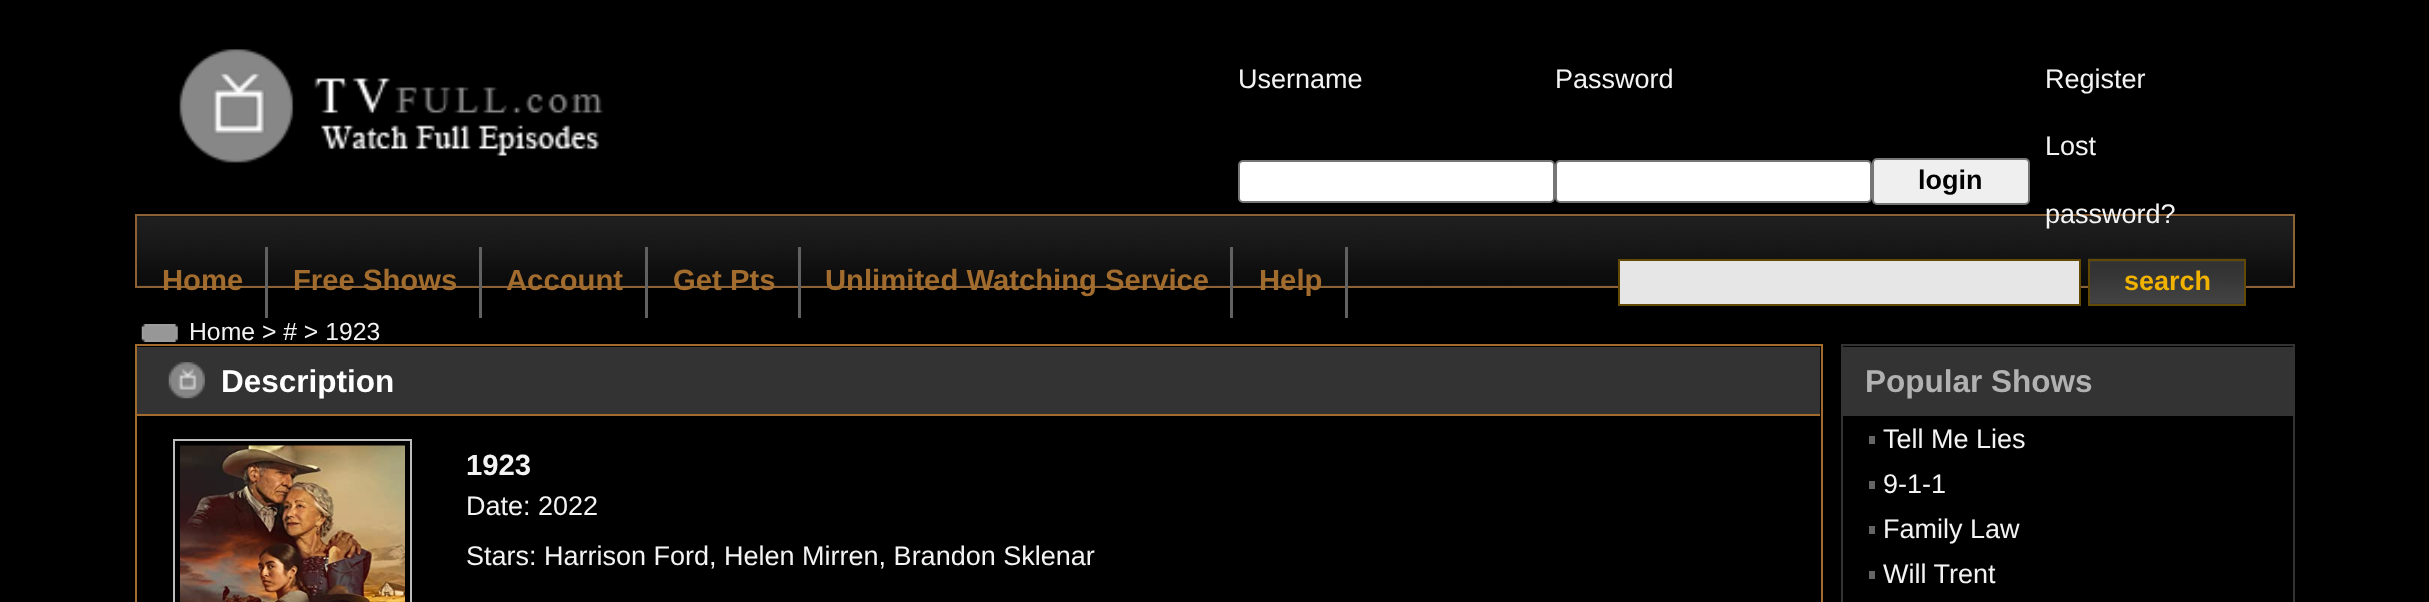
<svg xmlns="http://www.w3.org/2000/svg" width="2429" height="602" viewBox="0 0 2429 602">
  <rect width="100%" height="100%" fill="rgb(0,0,0)"/>
  <image x="179" y="49" width="425" height="114" href="pic1.png"/>
  <g font-family="Liberation Sans" font-size="27" fill="rgb(243,243,243)">
    <text x="1238" y="88">Username</text>
    <text x="1555" y="88">Password</text>
    <text x="2045" y="88">Register</text>
  </g>
  <rect x="1239" y="161" width="315" height="41" rx="4" fill="rgb(255,255,255)" stroke="rgb(118,118,118)" stroke-width="2"/>
  <rect x="1556" y="161" width="315" height="41" rx="4" fill="rgb(255,255,255)" stroke="rgb(118,118,118)" stroke-width="2"/>
  <rect x="1873" y="159" width="156" height="45" rx="4" fill="rgb(239,239,239)" stroke="rgb(118,118,118)" stroke-width="2"/>
  <text x="1918" y="189" font-family="Liberation Sans" font-size="27" font-weight="bold" fill="rgb(0,0,0)">login</text>
  <text x="2045" y="155" font-family="Liberation Sans" font-size="27" fill="rgb(243,243,243)">Lost</text>
  <image x="137" y="216" width="2156" height="70" href="pic2.png"/>
  <rect x="136" y="215" width="2158" height="72" fill="none" stroke="rgb(140,97,54)" stroke-width="2"/>
  <text x="2045" y="223" font-family="Liberation Sans" font-size="27" fill="rgb(243,243,243)">password?</text>
  <rect x="265" y="247" width="3" height="71" fill="rgb(97,97,97)"/>
  <text x="162" y="290" font-family="Liberation Sans" font-size="29.25" font-weight="bold" fill="rgb(161,108,46)">Home</text>
  <rect x="479" y="247" width="3" height="71" fill="rgb(97,97,97)"/>
  <text x="293" y="290" font-family="Liberation Sans" font-size="29.25" font-weight="bold" fill="rgb(161,108,46)">Free Shows</text>
  <rect x="645" y="247" width="3" height="71" fill="rgb(97,97,97)"/>
  <text x="506" y="290" font-family="Liberation Sans" font-size="29.25" font-weight="bold" fill="rgb(161,108,46)">Account</text>
  <rect x="798" y="247" width="3" height="71" fill="rgb(97,97,97)"/>
  <text x="673" y="290" font-family="Liberation Sans" font-size="29.25" font-weight="bold" fill="rgb(161,108,46)">Get Pts</text>
  <rect x="1230" y="247" width="3" height="71" fill="rgb(97,97,97)"/>
  <text x="825" y="290" font-family="Liberation Sans" font-size="29.25" font-weight="bold" fill="rgb(161,108,46)">Unlimited Watching Service</text>
  <rect x="1345" y="247" width="3" height="71" fill="rgb(97,97,97)"/>
  <text x="1259" y="290" font-family="Liberation Sans" font-size="29.25" font-weight="bold" fill="rgb(161,108,46)">Help</text>
  <rect x="1619" y="260" width="461" height="45" fill="rgb(230,230,230)" stroke="rgb(99,74,4)" stroke-width="2"/>
  <image x="2088" y="258" width="158" height="46" href="pic3.png"/>
  <rect x="2089" y="260" width="156" height="45" fill="none" stroke="rgb(99,74,4)" stroke-width="2"/>
  <text x="2124" y="290" font-family="Liberation Sans" font-size="27" font-weight="bold" fill="rgb(241,178,0)">search</text>
  <image x="141" y="324" width="37" height="18" href="pic4.png"/>
  <text x="189" y="340" font-family="Liberation Sans" font-size="24.75" fill="rgb(243,243,243)">Home &gt; # &gt; 1923</text>
  <rect x="136" y="345" width="1686" height="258" fill="none" stroke="rgb(161,108,46)" stroke-width="2"/>
  <rect x="137" y="347" width="1683" height="67" fill="rgb(51,51,51)"/>
  <rect x="137" y="414" width="1683" height="2" fill="rgb(161,108,46)"/>
  <image x="168" y="362" width="37" height="37" href="pic5.png"/>
  <text x="221" y="392" font-family="Liberation Sans" font-size="31.5" font-weight="bold" fill="rgb(255,255,255)">Description</text>
  <rect x="174" y="440" width="237" height="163" fill="none" stroke="rgb(189,189,189)" stroke-width="2"/>
  <image x="180" y="445" width="225" height="157" href="pic6.png"/>
  <text x="466" y="475" font-family="Liberation Sans" font-size="29.25" font-weight="bold" fill="rgb(243,243,243)">1923</text>
  <g font-family="Liberation Sans" font-size="27" fill="rgb(243,243,243)">
    <text>
      <tspan x="466" y="515">Date: 2022</tspan>
      <tspan x="466" y="565">Stars: Harrison Ford, Helen Mirren, Brandon Sklenar</tspan>
    </text>
  </g>
  <rect x="1842" y="345" width="452" height="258" fill="none" stroke="rgb(51,51,51)" stroke-width="2"/>
  <rect x="1843" y="347" width="450" height="69" fill="rgb(51,51,51)"/>
  <text x="1865" y="392" font-family="Liberation Sans" font-size="31.5" font-weight="bold" fill="rgb(177,177,177)">Popular Shows</text>
  <rect x="1869" y="436" width="6" height="8" fill="rgb(101,101,101)"/>
  <text x="1883" y="448" font-family="Liberation Sans" font-size="27" fill="rgb(243,243,243)">Tell Me Lies</text>
  <rect x="1869" y="481" width="6" height="8" fill="rgb(101,101,101)"/>
  <text x="1883" y="493" font-family="Liberation Sans" font-size="27" fill="rgb(243,243,243)">9-1-1</text>
  <rect x="1869" y="526" width="6" height="8" fill="rgb(101,101,101)"/>
  <text x="1883" y="538" font-family="Liberation Sans" font-size="27" fill="rgb(243,243,243)">Family Law</text>
  <rect x="1869" y="571" width="6" height="8" fill="rgb(101,101,101)"/>
  <text x="1883" y="583" font-family="Liberation Sans" font-size="27" fill="rgb(243,243,243)">Will Trent</text>
</svg>
